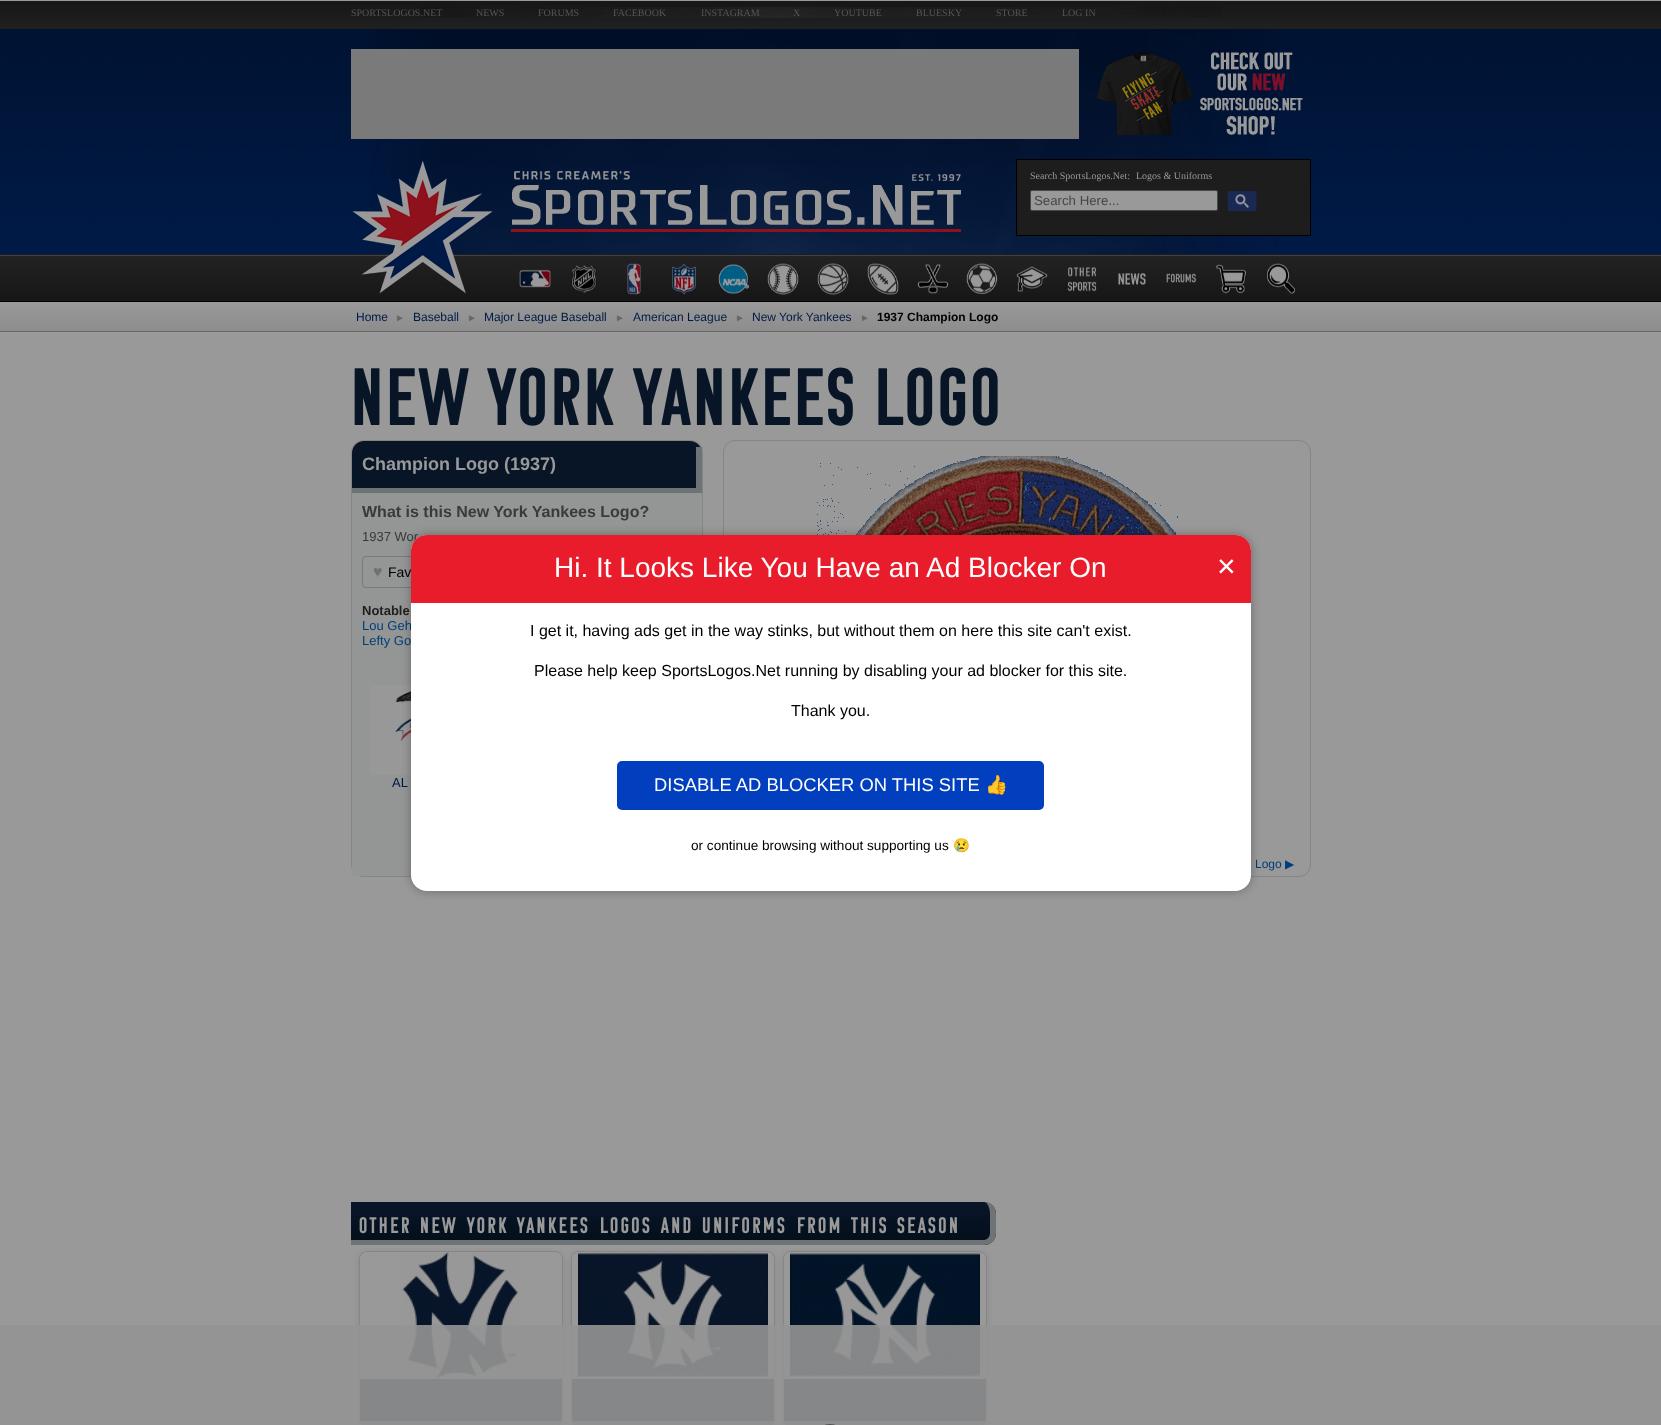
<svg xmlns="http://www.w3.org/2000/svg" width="1661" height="1425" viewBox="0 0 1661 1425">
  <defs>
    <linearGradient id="g1" gradientUnits="userSpaceOnUse" x1="0" y1="302" x2="0" y2="331"><stop offset="0" stop-color="rgb(153,153,153)"/><stop offset="1" stop-color="rgb(141,141,141)"/></linearGradient>
    <clipPath id="clip1"><rect x="360" y="1252" width="202" height="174" rx="7"/></clipPath>
    <clipPath id="clip2"><rect x="572" y="1252" width="202" height="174" rx="7"/></clipPath>
    <clipPath id="clip3"><rect x="784" y="1252" width="202" height="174" rx="7"/></clipPath>
  </defs>
  <rect width="100%" height="100%" fill="rgb(153,153,153)"/>
  <image x="0" y="29" width="1661" height="225" href="pic1.png"/>
  <image x="0" y="1" width="1661" height="28" href="pic2.png"/>
  <image x="420" y="7" width="801" height="11" href="pic3.png"/>
  <g font-family="Liberation Serif" font-size="10" fill="rgb(85,85,85)">
    <text x="351" y="16">SPORTSLOGOS.NET</text>
    <text x="476" y="16">NEWS</text>
    <text x="538" y="16">FORUMS</text>
    <text x="613" y="16">FACEBOOK</text>
    <text x="701" y="16">INSTAGRAM</text>
    <text x="793" y="16">X</text>
    <text x="834" y="16">YOUTUBE</text>
    <text x="916" y="16">BLUESKY</text>
    <text x="996" y="16">STORE</text>
    <text x="1062" y="16">LOG IN</text>
  </g>
  <image x="370" y="29" width="908" height="225" href="pic4.png"/>
  <rect x="351" y="49" width="728" height="90" fill="rgb(122,122,122)"/>
  <image x="1096" y="52" width="207" height="83" href="pic5.png"/>
  <image x="0" y="254" width="1661" height="47" href="pic9.png"/>
  <image x="352" y="160" width="141" height="134" href="pic6.png"/>
  <image x="511" y="171" width="450" height="61" href="pic7.png"/>
  <rect x="1016.5" y="159.5" width="294" height="76" fill="rgb(29,29,30)" stroke="rgb(0,0,0)"/>
  <g font-family="Liberation Serif" font-size="10" fill="rgb(153,153,153)">
    <text x="1030" y="179">Search SportsLogos.Net:</text>
    <text x="1136" y="179">Logos &amp; Uniforms</text>
  </g>
  <rect x="1030.5" y="190.5" width="187" height="20" rx="1.5" fill="rgb(153,153,153)" stroke="rgb(71,71,71)"/>
  <text x="1034" y="205" font-family="Liberation Sans" font-size="13.25" fill="rgb(70,70,70)">Search Here...</text>
  <image x="1227" y="191" width="30" height="20" href="pic8.png"/>
  <rect x="0" y="301" width="1661" height="1" fill="rgb(0,0,0)"/>
  <image x="519" y="269" width="32" height="19" href="pic10.png"/>
  <image x="571" y="265" width="26" height="28" href="pic11.png"/>
  <image x="627" y="263" width="14" height="32" href="pic12.png"/>
  <image x="672" y="263" width="24" height="32" href="pic13.png"/>
  <image x="718" y="264" width="32" height="30" href="pic14.png"/>
  <image x="767" y="263" width="32" height="32" href="pic15.png"/>
  <image x="817" y="263" width="32" height="32" href="pic16.png"/>
  <image x="867" y="263" width="32" height="32" href="pic17.png"/>
  <image x="917" y="264" width="32" height="30" href="pic18.png"/>
  <image x="966" y="263" width="32" height="32" href="pic19.png"/>
  <image x="1016" y="266" width="32" height="26" href="pic20.png"/>
  <image x="1067" y="267" width="30" height="25" href="pic21.png"/>
  <image x="1118" y="273" width="28" height="12" href="pic22.png"/>
  <image x="1166" y="273" width="30" height="10" href="pic23.png"/>
  <image x="1216" y="264" width="30" height="30" href="pic24.png"/>
  <image x="1267" y="263" width="29" height="31" href="pic25.png"/>
  <rect x="0" y="308" width="1661" height="23" fill="url(#g1)"/>
  <rect x="0" y="331" width="1661" height="1" fill="rgb(103,103,103)"/>
  <text x="356" y="321" font-family="Liberation Sans" font-size="12" fill="rgb(0,26,71)">Home</text>
  <text x="395" y="321" font-family="Liberation Sans" font-size="10" fill="rgb(103,103,103)">►</text>
  <text x="413" y="321" font-family="Liberation Sans" font-size="12" fill="rgb(0,26,71)">Baseball</text>
  <text x="467" y="321" font-family="Liberation Sans" font-size="10" fill="rgb(103,103,103)">►</text>
  <text x="484" y="321" font-family="Liberation Sans" font-size="12" fill="rgb(0,26,71)">Major League Baseball</text>
  <text x="615" y="321" font-family="Liberation Sans" font-size="10" fill="rgb(103,103,103)">►</text>
  <text x="633" y="321" font-family="Liberation Sans" font-size="12" fill="rgb(0,26,71)">American League</text>
  <text x="735" y="321" font-family="Liberation Sans" font-size="10" fill="rgb(103,103,103)">►</text>
  <text x="752" y="321" font-family="Liberation Sans" font-size="12" fill="rgb(0,26,71)">New York Yankees</text>
  <text x="860" y="321" font-family="Liberation Sans" font-size="10" fill="rgb(103,103,103)">►</text>
  <text x="877" y="321" font-family="Liberation Sans" font-size="12" font-weight="bold" fill="rgb(0,0,0)">1937 Champion Logo</text>
  <text x="351" y="425" font-family="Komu" font-size="81.25" letter-spacing="3.25" fill="rgb(7,21,38)">NEW YORK YANKEES LOGO</text>
  <rect x="351.5" y="440.5" width="351" height="436" rx="11.5" fill="rgb(148,149,149)" stroke="rgb(133,133,133)"/>
  <path d="M364 441H690C696.5 441 702 446.5 702 453V493H352V453C352 446.5 357.5 441 364 441Z" fill="rgb(7,21,38)"/>
  <rect x="696" y="447" width="6" height="46" fill="rgb(110,115,118)"/>
  <rect x="352" y="488" width="350" height="5" fill="rgb(110,115,118)"/>
  <text x="362" y="470" font-family="Liberation Sans" font-size="18" font-weight="bold" fill="rgb(153,153,153)">Champion Logo (1937)</text>
  <rect x="352" y="867" width="9" height="9" fill="rgb(148,149,149)"/>
  <text x="362" y="517" font-family="Liberation Sans" font-size="16" font-weight="bold" fill="rgb(58,58,58)">What is this New York Yankees Logo?</text>
  <text x="362" y="541" font-family="Liberation Sans" font-size="13" fill="rgb(58,58,58)">1937 Wor</text>
  <rect x="362.5" y="556.5" width="94" height="31" rx="3.5" fill="none" stroke="rgb(122,122,122)"/>
  <text x="373" y="577" font-family="Liberation Sans" font-size="16" fill="rgb(112,112,112)">♥</text>
  <text x="388" y="577" font-family="Liberation Sans" font-size="14" fill="rgb(0,0,0)">Fav</text>
  <text x="362" y="615" font-family="Liberation Sans" font-size="13" font-weight="bold" fill="rgb(31,31,31)">Notable</text>
  <g font-family="Liberation Sans" font-size="13" fill="rgb(0,61,122)">
    <text>
      <tspan x="362" y="630">Lou Geh</tspan>
      <tspan x="362" y="645">Lefty Go</tspan>
    </text>
  </g>
  <image x="370" y="685" width="41" height="90" href="pic26.png"/>
  <text x="392" y="787" font-family="Liberation Sans" font-size="13" fill="rgb(0,26,71)">AL</text>
  <rect x="723.5" y="440.5" width="587" height="436" rx="11.5" fill="none" stroke="rgb(133,133,133)"/>
  <image x="817" y="456" width="361" height="79" href="pic27.png"/>
  <text x="1255" y="868" font-family="Liberation Sans" font-size="12" fill="rgb(0,61,122)">Logo</text>
  <text x="1285" y="868" font-family="DejaVu Sans" font-size="12" fill="rgb(0,61,122)">▶</text>
  <path d="M351 1202H984C990.5 1202 996 1207.5 996 1214V1233C996 1239.5 990.5 1245 984 1245H351Z" fill="rgb(7,21,38)"/>
  <image x="351" y="1215" width="645" height="30" href="pic28.png"/>
  <path d="M351 1202H984C991 1202 996 1207 996 1214V1233C996 1240 991 1245 984 1245H351ZM351 1202H984C987 1202 990 1207 990 1214V1233C990 1237 987 1240 984 1240H351Z" fill="rgb(110,115,118)" fill-rule="evenodd"/>
  <g font-family="Komu" font-size="22.5" letter-spacing="2.5" fill="rgb(153,153,153)">
    <text x="359" y="1233">OTHER</text>
    <text x="420" y="1233">NEW</text>
    <text x="467" y="1233">YORK</text>
    <text x="517" y="1233">YANKEES</text>
    <text x="600" y="1233">LOGOS</text>
    <text x="661" y="1233">AND</text>
    <text x="702" y="1233">UNIFORMS</text>
    <text x="797" y="1233">FROM</text>
    <text x="851" y="1233">THIS</text>
    <text x="897" y="1233">SEASON</text>
  </g>
  <rect x="359" y="1253" width="204" height="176" rx="8" fill="rgba(0,0,0,0.1)" filter="blur(3px)"/>
  <rect x="359.5" y="1251.5" width="203" height="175" rx="7.5" fill="none" stroke="rgb(133,133,133)"/>
  <path d="M360 1379H562V1419C562 1423 559 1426 555 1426H367C363 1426 360 1423 360 1419Z" fill="rgb(7,21,38)"/>
  <g clip-path="url(#clip1)">
    <rect x="360" y="1421" width="202" height="4" fill="rgb(110,115,118)"/>
  </g>
  <rect x="571" y="1253" width="204" height="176" rx="8" fill="rgba(0,0,0,0.1)" filter="blur(3px)"/>
  <path d="M367 1252H555C559 1252 562 1255 562 1259V1379H360V1259C360 1255 363 1252 367 1252Z" fill="rgb(153,153,153)"/>
  <image x="402" y="1252" width="117" height="127" href="pic29.png"/>
  <rect x="571.5" y="1251.5" width="203" height="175" rx="7.5" fill="none" stroke="rgb(133,133,133)"/>
  <path d="M572 1379H774V1419C774 1423 771 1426 767 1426H579C575 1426 572 1423 572 1419Z" fill="rgb(7,21,38)"/>
  <g clip-path="url(#clip2)">
    <rect x="572" y="1421" width="202" height="4" fill="rgb(110,115,118)"/>
  </g>
  <rect x="783" y="1253" width="204" height="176" rx="8" fill="rgba(0,0,0,0.1)" filter="blur(3px)"/>
  <path d="M579 1252H767C771 1252 774 1255 774 1259V1379H572V1259C572 1255 575 1252 579 1252Z" fill="rgb(153,153,153)"/>
  <image x="578" y="1253" width="190" height="125" href="pic30.png"/>
  <rect x="783.5" y="1251.5" width="203" height="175" rx="7.5" fill="none" stroke="rgb(133,133,133)"/>
  <path d="M791 1252H979C983 1252 986 1255 986 1259V1379H784V1259C784 1255 787 1252 791 1252Z" fill="rgb(153,153,153)"/>
  <image x="790" y="1253" width="190" height="124" href="pic31.png"/>
  <path d="M784 1379H986V1419C986 1423 983 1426 979 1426H791C787 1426 784 1423 784 1419Z" fill="rgb(7,21,38)"/>
  <g clip-path="url(#clip3)">
    <rect x="784" y="1421" width="202" height="4" fill="rgb(110,115,118)"/>
  </g>
  <rect x="411" y="535" width="840" height="356" rx="16" fill="rgba(0,0,0,0.3)" filter="blur(5px)"/>
  <rect x="411" y="535" width="840" height="356" rx="16" fill="rgb(255,255,255)"/>
  <path d="M427 535H1235C1244 535 1251 542 1251 551V603H411V551C411 542 418 535 427 535Z" fill="rgb(233,28,43)"/>
  <text x="554" y="577" font-family="Liberation Sans" font-size="28" fill="rgb(255,255,255)">Hi. It Looks Like You Have an Ad Blocker On</text>
  <text x="1217" y="577" font-family="Liberation Sans" font-size="32" fill="rgb(255,255,255)">×</text>
  <g font-family="Liberation Sans" font-size="16" fill="rgb(0,0,0)">
    <text x="530" y="636">I get it, having ads get in the way stinks, but without them on here this site can't exist.</text>
    <text x="534" y="676">Please help keep SportsLogos.Net running by disabling your ad blocker for this site.</text>
    <text x="791" y="716">Thank you.</text>
  </g>
  <rect x="617" y="761" width="427" height="49" rx="5" fill="rgb(1,63,190)"/>
  <text x="654" y="791" font-family="Liberation Sans" font-size="18.4" fill="rgb(255,255,255)">DISABLE AD BLOCKER ON THIS SITE</text>
  <text x="985" y="791" font-family="Noto Color Emoji" font-size="18.4" fill="rgb(255,255,255)">👍</text>
  <text x="691" y="850" font-family="Liberation Sans" font-size="13.6" fill="rgb(0,0,0)">or continue browsing without supporting us</text>
  <text x="953" y="850" font-family="Noto Color Emoji" font-size="13.6" fill="rgb(0,0,0)">😢</text>
  <rect x="0" y="1325" width="1661" height="100" fill="rgba(148,148,148,0.9)"/>
  <rect x="819.5" y="1424.5" width="21" height="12" rx="10.5" fill="none" stroke="rgb(147,148,148)"/>
  <rect x="819.5" y="1424.5" width="21" height="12" rx="10.5" fill="none" stroke="rgb(82,82,82)"/>
</svg>
